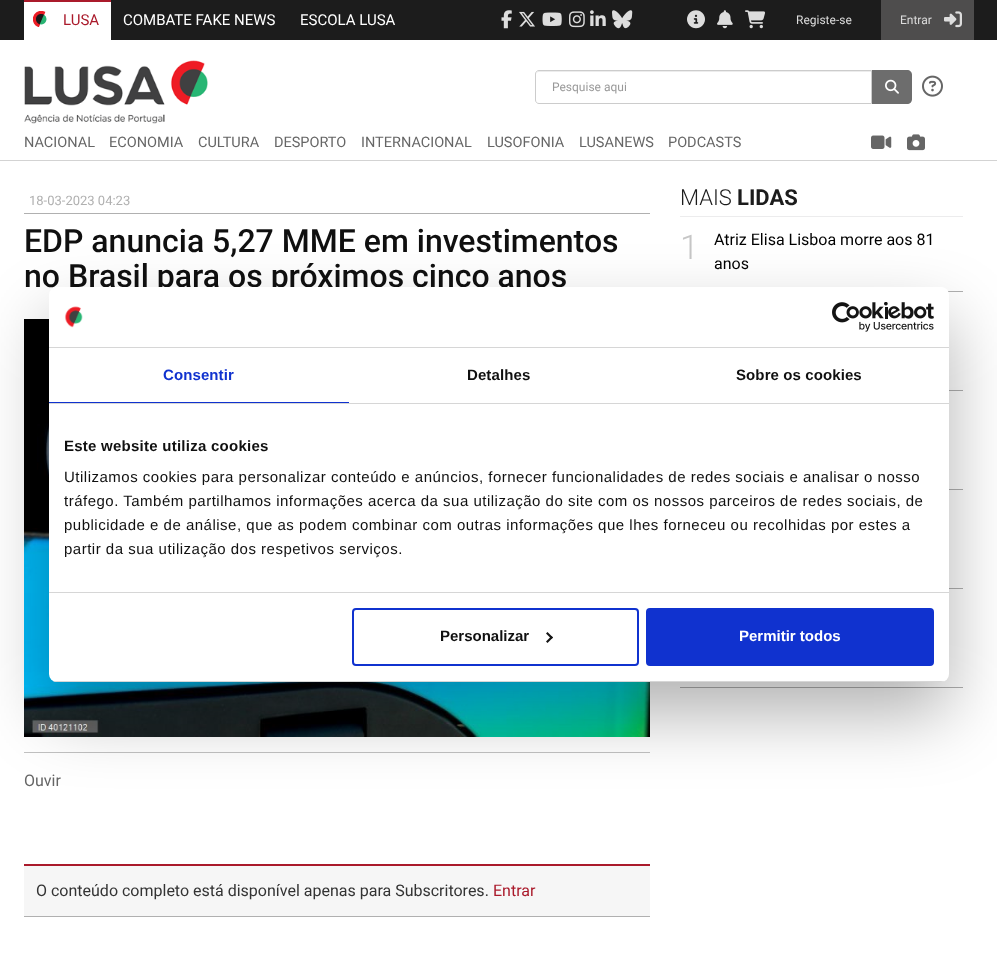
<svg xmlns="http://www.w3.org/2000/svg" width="997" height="968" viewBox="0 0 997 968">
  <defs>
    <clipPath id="clip1"><rect x="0" y="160" width="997" height="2"/></clipPath>
    <clipPath id="clip2"><rect x="49" y="287" width="900" height="395" rx="8"/></clipPath>
  </defs>
  <rect width="100%" height="100%" fill="rgb(255,255,255)"/>
  <rect x="0" y="0" width="997" height="40" fill="rgb(28,28,28)"/>
  <g clip-path="url(#clip1)">
    <rect x="0" y="41" width="997" height="120" fill="rgb(211,211,211)" filter="blur(0.5px)"/>
  </g>
  <rect x="24" y="2" width="87" height="38" fill="rgb(255,255,255)"/>
  <rect x="24" y="0" width="87" height="2" fill="rgb(170,26,43)"/>
  <image x="33" y="11" width="14" height="16" href="pic1.png"/>
  <text x="63" y="25" font-family="Roboto" font-size="15" fill="rgb(170,26,43)">LUSA</text>
  <g font-family="Roboto" font-size="15" fill="rgb(255,255,255)">
    <text x="123" y="25">COMBATE FAKE NEWS</text>
    <text x="300" y="25">ESCOLA LUSA</text>
  </g>
  <image x="501" y="10" width="11" height="19" href="pic2.png"/>
  <image x="519" y="11" width="16" height="16" href="pic3.png"/>
  <image x="542" y="12" width="20" height="14" href="pic4.png"/>
  <image x="569" y="11" width="16" height="17" href="pic5.png"/>
  <image x="590" y="10" width="16" height="16" href="pic6.png"/>
  <image x="612" y="10" width="21" height="19" href="pic7.png"/>
  <image x="687" y="10" width="18" height="19" href="pic8.png"/>
  <image x="717" y="10" width="16" height="19" href="pic9.png"/>
  <image x="745" y="10" width="21" height="19" href="pic10.png"/>
  <text x="796" y="24" font-family="Roboto" font-size="12" fill="rgb(221,221,221)">Registe-se</text>
  <rect x="881" y="0" width="93" height="40" fill="rgb(78,77,77)"/>
  <text x="900" y="24" font-family="Roboto" font-size="12" fill="rgb(221,221,221)">Entrar</text>
  <image x="944" y="11" width="18" height="17" href="pic11.png"/>
  <image x="24" y="60" width="184" height="64" href="pic12.png"/>
  <path d="M539 72H871V71H539C537 71 536 73 536 75C536 73 537 72 539 72Z" fill="rgb(236,236,236)"/>
  <path d="M539 70.5H871.5V103.5H539C537 103.5 535.5 102 535.5 100V74C535.5 72 537 70.5 539 70.5Z" fill="none" stroke="rgb(204,204,204)"/>
  <text x="552" y="91" font-family="Roboto" font-size="12" fill="rgb(153,153,153)">Pesquise aqui</text>
  <path d="M872 70H907C910 70 912 72 912 75V99C912 102 910 104 907 104H872Z" fill="rgb(109,109,109)"/>
  <image x="885" y="79" width="14" height="15" href="pic13.png"/>
  <image x="922" y="75" width="21" height="22" href="pic14.png"/>
  <g font-family="Roboto" font-size="14.5" fill="rgb(102,102,102)">
    <text x="24" y="147">NACIONAL</text>
    <text x="109" y="147">ECONOMIA</text>
    <text x="198" y="147">CULTURA</text>
    <text x="274" y="147">DESPORTO</text>
    <text x="361" y="147">INTERNACIONAL</text>
    <text x="487" y="147">LUSOFONIA</text>
    <text x="579" y="147">LUSANEWS</text>
    <text x="668" y="147">PODCASTS</text>
  </g>
  <image x="871" y="135" width="21" height="14" href="pic15.png"/>
  <image x="907" y="134" width="18" height="17" href="pic16.png"/>
  <rect x="24" y="213" width="626" height="1" fill="rgb(176,176,176)"/>
  <text x="29" y="205" font-family="Roboto" font-size="13" fill="rgb(176,176,176)">18-03-2023 04:23</text>
  <g font-family="Roboto" font-size="32" font-weight="500" fill="rgb(16,16,16)">
    <text>
      <tspan x="24" y="252">EDP anuncia 5,27 MME em investimentos</tspan>
      <tspan x="24" y="287">no Brasil para os próximos cinco anos</tspan>
    </text>
  </g>
  <image x="24" y="319" width="626" height="418" href="pic17.png"/>
  <rect x="24" y="752" width="626" height="1" fill="rgb(194,194,194)"/>
  <text x="24" y="786" font-family="Roboto" font-size="16" fill="rgb(102,102,102)">Ouvir</text>
  <rect x="24" y="866" width="626" height="50" fill="rgb(246,246,246)"/>
  <rect x="24" y="864" width="626" height="2" fill="rgb(170,26,43)"/>
  <rect x="24" y="916" width="626" height="1" fill="rgb(176,176,176)"/>
  <text x="36" y="896" font-family="Roboto" font-size="16" fill="rgb(51,51,51)">O conteúdo completo está disponível apenas para Subscritores.</text>
  <text x="493" y="896" font-family="Roboto" font-size="16" fill="rgb(170,26,43)">Entrar</text>
  <rect x="680" y="216" width="283" height="1" fill="rgb(236,236,237)"/>
  <text x="680" y="205" font-family="Roboto" font-size="22" font-weight="300" fill="rgb(28,28,28)">MAIS</text>
  <text x="737" y="205" font-family="Roboto" font-size="22" font-weight="bold" fill="rgb(28,28,28)">LIDAS</text>
  <rect x="947" y="291" width="16" height="1" fill="rgb(176,176,176)"/>
  <text x="680" y="259" font-family="Roboto" font-size="34" font-weight="300" fill="rgb(198,198,198)">1</text>
  <g font-family="Roboto" font-size="16" fill="rgb(0,0,0)">
    <text>
      <tspan x="714" y="245">Atriz Elisa Lisboa morre aos 81</tspan>
      <tspan x="714" y="269">anos</tspan>
    </text>
  </g>
  <rect x="949" y="390" width="14" height="1" fill="rgb(176,176,176)"/>
  <rect x="949" y="489" width="14" height="1" fill="rgb(176,176,176)"/>
  <rect x="949" y="588" width="14" height="1" fill="rgb(176,176,176)"/>
  <rect x="680" y="687" width="283" height="1" fill="rgb(176,176,176)"/>
  <rect x="49" y="319" width="900" height="395" rx="8" fill="rgba(0,0,0,0.3)" filter="blur(34px)"/>
  <rect x="49" y="287" width="900" height="395" rx="8" fill="rgb(255,255,255)"/>
  <rect x="49" y="347" width="900" height="1" fill="rgb(214,214,214)"/>
  <image x="64" y="306" width="19" height="22" href="pic18.png"/>
  <image x="832" y="302" width="102" height="30" href="pic19.png"/>
  <rect x="49" y="403" width="900" height="1" fill="rgb(214,214,214)"/>
  <rect x="49" y="402" width="300" height="1" fill="rgb(16,50,207)"/>
  <text x="163" y="380" font-family="Liberation Sans" font-size="15" font-weight="bold" letter-spacing="0.1" fill="rgb(16,50,207)">Consentir</text>
  <g font-family="Liberation Sans" font-size="15" font-weight="bold" letter-spacing="0.1" fill="rgb(16,16,16)">
    <text x="467" y="380">Detalhes</text>
    <text x="736" y="380">Sobre os cookies</text>
  </g>
  <rect x="49" y="592" width="900" height="1" fill="rgb(214,214,214)"/>
  <text x="64" y="451" font-family="Liberation Sans" font-size="15" font-weight="bold" letter-spacing="0.25" fill="rgb(16,16,16)">Este website utiliza cookies</text>
  <g font-family="Liberation Sans" font-size="15" letter-spacing="0.5" fill="rgb(16,16,16)">
    <text>
      <tspan x="64" y="482">Utilizamos cookies para personalizar conteúdo e anúncios, fornecer funcionalidades de redes sociais e analisar o nosso</tspan>
      <tspan x="64" y="506">tráfego. Também partilhamos informações acerca da sua utilização do site com os nossos parceiros de redes sociais, de</tspan>
      <tspan x="64" y="530">publicidade e de análise, que as podem combinar com outras informações que lhes forneceu ou recolhidas por estes a</tspan>
      <tspan x="64" y="554">partir da sua utilização dos respetivos serviços.</tspan>
    </text>
  </g>
  <g clip-path="url(#clip2)">
    <rect x="49" y="681" width="900" height="1" fill="rgb(214,214,214)"/>
  </g>
  <rect x="353" y="609" width="285" height="56" rx="3" fill="none" stroke="rgb(16,50,207)" stroke-width="2"/>
  <text x="440" y="641" font-family="Liberation Sans" font-size="15" font-weight="bold" fill="rgb(16,16,16)">Personalizar</text>
  <path d="M547.5 632L553 637.5L551.5 639L546 633.5Z" fill="rgb(20,20,20)"/>
  <path d="M551.5 636L553 637.5L547.5 643L546 641.5Z" fill="rgb(20,20,20)"/>
  <rect x="647" y="609" width="286" height="56" rx="3" fill="rgb(16,50,207)" stroke="rgb(16,50,207)" stroke-width="2"/>
  <text x="739" y="641" font-family="Liberation Sans" font-size="15" font-weight="bold" fill="rgb(255,255,255)">Permitir todos</text>
</svg>
